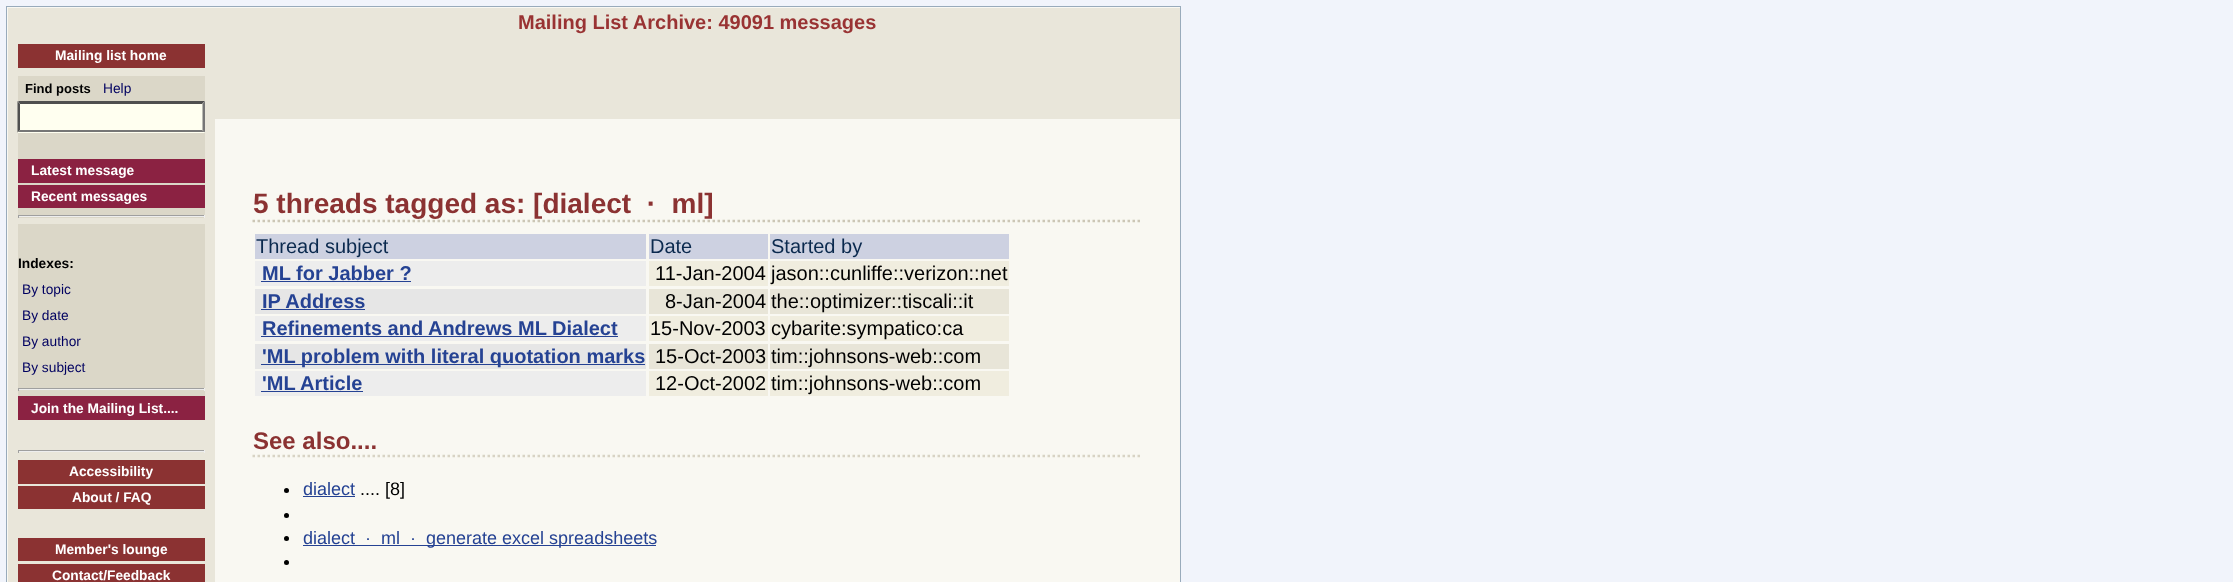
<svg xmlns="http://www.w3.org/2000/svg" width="2233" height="582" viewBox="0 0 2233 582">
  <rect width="100%" height="100%" fill="rgb(241,244,251)"/>
  <rect x="6.5" y="6.5" width="1174" height="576" fill="rgb(249,248,242)" stroke="rgb(153,171,187)"/>
  <rect x="8" y="8" width="207" height="574" fill="rgb(233,230,218)"/>
  <rect x="18" y="44" width="187" height="24" fill="rgb(139,50,50)"/>
  <text x="55" y="60" font-family="Liberation Sans" font-size="13.75" font-weight="bold" fill="rgb(255,255,255)">Mailing list home</text>
  <rect x="18" y="76" width="187" height="142" fill="rgb(219,215,200)"/>
  <text x="25" y="93" font-family="Liberation Sans" font-size="13" font-weight="bold" fill="rgb(0,0,0)">Find posts</text>
  <text x="103" y="93" font-family="Liberation Sans" font-size="13.75" fill="rgb(0,0,96)">Help</text>
  <rect x="18" y="101" width="187" height="32" fill="rgb(255,255,240)"/>
  <path d="M18 101H205L202 104H20Z" fill="rgb(79,79,79)"/>
  <path d="M205 101V132.5L202.5 130V104Z" fill="rgb(118,118,118)"/>
  <path d="M205 132H18L20 130H202Z" fill="rgb(118,118,118)"/>
  <path d="M17.5 132.5V101L20 104V130Z" fill="rgb(79,79,79)"/>
  <rect x="18" y="159" width="187" height="24" fill="rgb(139,34,66)"/>
  <text x="31" y="175" font-family="Liberation Sans" font-size="13.75" font-weight="bold" fill="rgb(255,255,255)">Latest message</text>
  <rect x="18" y="185" width="187" height="23" fill="rgb(139,34,66)"/>
  <text x="31" y="201" font-family="Liberation Sans" font-size="13.75" font-weight="bold" fill="rgb(255,255,255)">Recent messages</text>
  <rect x="18" y="215" width="187" height="1" fill="rgb(159,159,159)"/>
  <rect x="204" y="215" width="1" height="3" fill="rgb(238,238,238)"/>
  <rect x="18" y="216" width="187" height="1" fill="rgb(238,238,238)"/>
  <rect x="18" y="215" width="1" height="3" fill="rgb(159,159,159)"/>
  <rect x="18" y="224" width="187" height="172" fill="rgb(219,215,200)"/>
  <text x="18" y="268" font-family="Liberation Sans" font-size="13.75" font-weight="bold" fill="rgb(0,0,0)">Indexes:</text>
  <g font-family="Liberation Sans" font-size="13.75" fill="rgb(0,0,96)">
    <text>
      <tspan x="22" y="294">By topic</tspan>
      <tspan x="22" y="320">By date</tspan>
      <tspan x="22" y="346">By author</tspan>
      <tspan x="22" y="372">By subject</tspan>
    </text>
  </g>
  <rect x="18" y="388" width="187" height="1" fill="rgb(159,159,159)"/>
  <rect x="204" y="388" width="1" height="3" fill="rgb(238,238,238)"/>
  <rect x="18" y="389" width="187" height="1" fill="rgb(238,238,238)"/>
  <rect x="18" y="388" width="1" height="3" fill="rgb(159,159,159)"/>
  <rect x="18" y="396" width="187" height="24" fill="rgb(139,34,66)"/>
  <text x="31" y="413" font-family="Liberation Sans" font-size="13.75" font-weight="bold" fill="rgb(255,255,255)">Join the Mailing List....</text>
  <rect x="18" y="450" width="187" height="1" fill="rgb(159,159,159)"/>
  <rect x="204" y="450" width="1" height="3" fill="rgb(238,238,238)"/>
  <rect x="18" y="451" width="187" height="1" fill="rgb(238,238,238)"/>
  <rect x="18" y="450" width="1" height="3" fill="rgb(159,159,159)"/>
  <rect x="18" y="460" width="187" height="24" fill="rgb(139,50,50)"/>
  <text x="69" y="476" font-family="Liberation Sans" font-size="13.75" font-weight="bold" fill="rgb(255,255,255)">Accessibility</text>
  <rect x="18" y="486" width="187" height="23" fill="rgb(139,50,50)"/>
  <text x="72" y="502" font-family="Liberation Sans" font-size="13.75" font-weight="bold" fill="rgb(255,255,255)">About / FAQ</text>
  <rect x="18" y="538" width="187" height="23" fill="rgb(139,50,50)"/>
  <text x="55" y="554" font-family="Liberation Sans" font-size="13.75" font-weight="bold" fill="rgb(255,255,255)">Member's lounge</text>
  <rect x="18" y="564" width="187" height="18" fill="rgb(139,50,50)"/>
  <text x="52" y="580" font-family="Liberation Sans" font-size="13.75" font-weight="bold" fill="rgb(255,255,255)">Contact/Feedback</text>
  <rect x="215" y="8" width="965" height="111" fill="rgb(233,230,218)"/>
  <text x="518" y="29" font-family="Liberation Sans" font-size="20" font-weight="bold" fill="rgb(153,51,51)">Mailing List Archive: 49091 messages</text>
  <path d="M252.5 221H1142.5" fill="none" stroke="rgb(204,198,181)" stroke-width="2.5" stroke-dasharray="2.5 2.5"/>
  <text x="253" y="213" font-family="Liberation Sans" font-size="28" font-weight="bold" fill="rgb(139,50,50)" xml:space="preserve">5 threads tagged as: [dialect  ·  ml]</text>
  <rect x="255" y="234" width="391" height="25" fill="rgb(205,209,225)"/>
  <text x="256" y="253" font-family="Liberation Sans" font-size="20" fill="rgb(10,41,78)">Thread subject</text>
  <rect x="649" y="234" width="119" height="25" fill="rgb(205,209,225)"/>
  <text x="650" y="253" font-family="Liberation Sans" font-size="20" fill="rgb(10,41,78)">Date</text>
  <rect x="770" y="234" width="239" height="25" fill="rgb(205,209,225)"/>
  <text x="771" y="253" font-family="Liberation Sans" font-size="20" fill="rgb(10,41,78)">Started by</text>
  <rect x="255" y="261" width="391" height="25" fill="rgb(237,237,237)"/>
  <text x="262" y="280" font-family="Liberation Sans" font-size="20" font-weight="bold" fill="rgb(37,66,147)">ML for Jabber ?</text>
  <rect x="261" y="281" width="150" height="1" fill="rgb(37,66,147)"/>
  <rect x="649" y="261" width="119" height="25" fill="rgb(240,237,223)"/>
  <text x="655" y="280" font-family="Liberation Sans" font-size="20" fill="rgb(0,0,0)">11-Jan-2004</text>
  <rect x="770" y="261" width="239" height="25" fill="rgb(240,237,223)"/>
  <text x="771" y="280" font-family="Liberation Sans" font-size="20" fill="rgb(0,0,0)">jason::cunliffe::verizon::net</text>
  <rect x="255" y="289" width="391" height="25" fill="rgb(230,230,230)"/>
  <text x="262" y="308" font-family="Liberation Sans" font-size="20" font-weight="bold" fill="rgb(37,66,147)">IP Address</text>
  <rect x="261" y="309" width="104" height="1" fill="rgb(37,66,147)"/>
  <rect x="649" y="289" width="119" height="25" fill="rgb(232,229,216)"/>
  <text x="665" y="308" font-family="Liberation Sans" font-size="20" fill="rgb(0,0,0)">8-Jan-2004</text>
  <rect x="770" y="289" width="239" height="25" fill="rgb(232,229,216)"/>
  <text x="771" y="308" font-family="Liberation Sans" font-size="20" fill="rgb(0,0,0)">the::optimizer::tiscali::it</text>
  <rect x="255" y="316" width="391" height="25" fill="rgb(237,237,237)"/>
  <text x="262" y="335" font-family="Liberation Sans" font-size="20" font-weight="bold" fill="rgb(37,66,147)">Refinements and Andrews ML Dialect</text>
  <rect x="261" y="336" width="357" height="1" fill="rgb(37,66,147)"/>
  <rect x="649" y="316" width="119" height="25" fill="rgb(240,237,223)"/>
  <text x="650" y="335" font-family="Liberation Sans" font-size="20" fill="rgb(0,0,0)">15-Nov-2003</text>
  <rect x="770" y="316" width="239" height="25" fill="rgb(240,237,223)"/>
  <text x="771" y="335" font-family="Liberation Sans" font-size="20" fill="rgb(0,0,0)">cybarite:sympatico:ca</text>
  <rect x="255" y="344" width="391" height="25" fill="rgb(230,230,230)"/>
  <rect x="261" y="364" width="384" height="1" fill="rgb(37,66,147)"/>
  <text x="262" y="363" font-family="Liberation Sans" font-size="20" font-weight="bold" fill="rgb(37,66,147)">'ML problem with literal quotation marks</text>
  <rect x="649" y="344" width="119" height="25" fill="rgb(232,229,216)"/>
  <text x="655" y="363" font-family="Liberation Sans" font-size="20" fill="rgb(0,0,0)">15-Oct-2003</text>
  <rect x="770" y="344" width="239" height="25" fill="rgb(232,229,216)"/>
  <text x="771" y="363" font-family="Liberation Sans" font-size="20" fill="rgb(0,0,0)">tim::johnsons-web::com</text>
  <rect x="255" y="371" width="391" height="25" fill="rgb(237,237,237)"/>
  <text x="262" y="390" font-family="Liberation Sans" font-size="20" font-weight="bold" fill="rgb(37,66,147)">'ML Article</text>
  <rect x="261" y="391" width="102" height="1" fill="rgb(37,66,147)"/>
  <rect x="649" y="371" width="119" height="25" fill="rgb(240,237,223)"/>
  <text x="655" y="390" font-family="Liberation Sans" font-size="20" fill="rgb(0,0,0)">12-Oct-2002</text>
  <rect x="770" y="371" width="239" height="25" fill="rgb(240,237,223)"/>
  <text x="771" y="390" font-family="Liberation Sans" font-size="20" fill="rgb(0,0,0)">tim::johnsons-web::com</text>
  <path d="M252.5 456H1142.5" fill="none" stroke="rgb(216,211,196)" stroke-width="2.5" stroke-dasharray="2.5 2.5"/>
  <text x="253" y="449" font-family="Liberation Sans" font-size="24" font-weight="bold" fill="rgb(139,50,50)">See also....</text>
  <circle cx="286.5" cy="490.5" r="2.5" fill="rgb(0,0,0)"/>
  <text x="303" y="495" font-family="Liberation Sans" font-size="18" fill="rgb(37,66,147)">dialect</text>
  <rect x="303" y="496" width="52" height="1" fill="rgb(37,66,147)"/>
  <text x="360" y="495" font-family="Liberation Sans" font-size="18" fill="rgb(0,0,0)">.... [8]</text>
  <circle cx="286.5" cy="515.5" r="2.5" fill="rgb(0,0,0)"/>
  <circle cx="286.5" cy="538.5" r="2.5" fill="rgb(0,0,0)"/>
  <rect x="303" y="545" width="353" height="1" fill="rgb(37,66,147)"/>
  <text x="303" y="544" font-family="Liberation Sans" font-size="18" fill="rgb(37,66,147)" xml:space="preserve">dialect  ·  ml  ·  generate excel spreadsheets</text>
  <circle cx="286.5" cy="562.5" r="2.5" fill="rgb(0,0,0)"/>
</svg>
